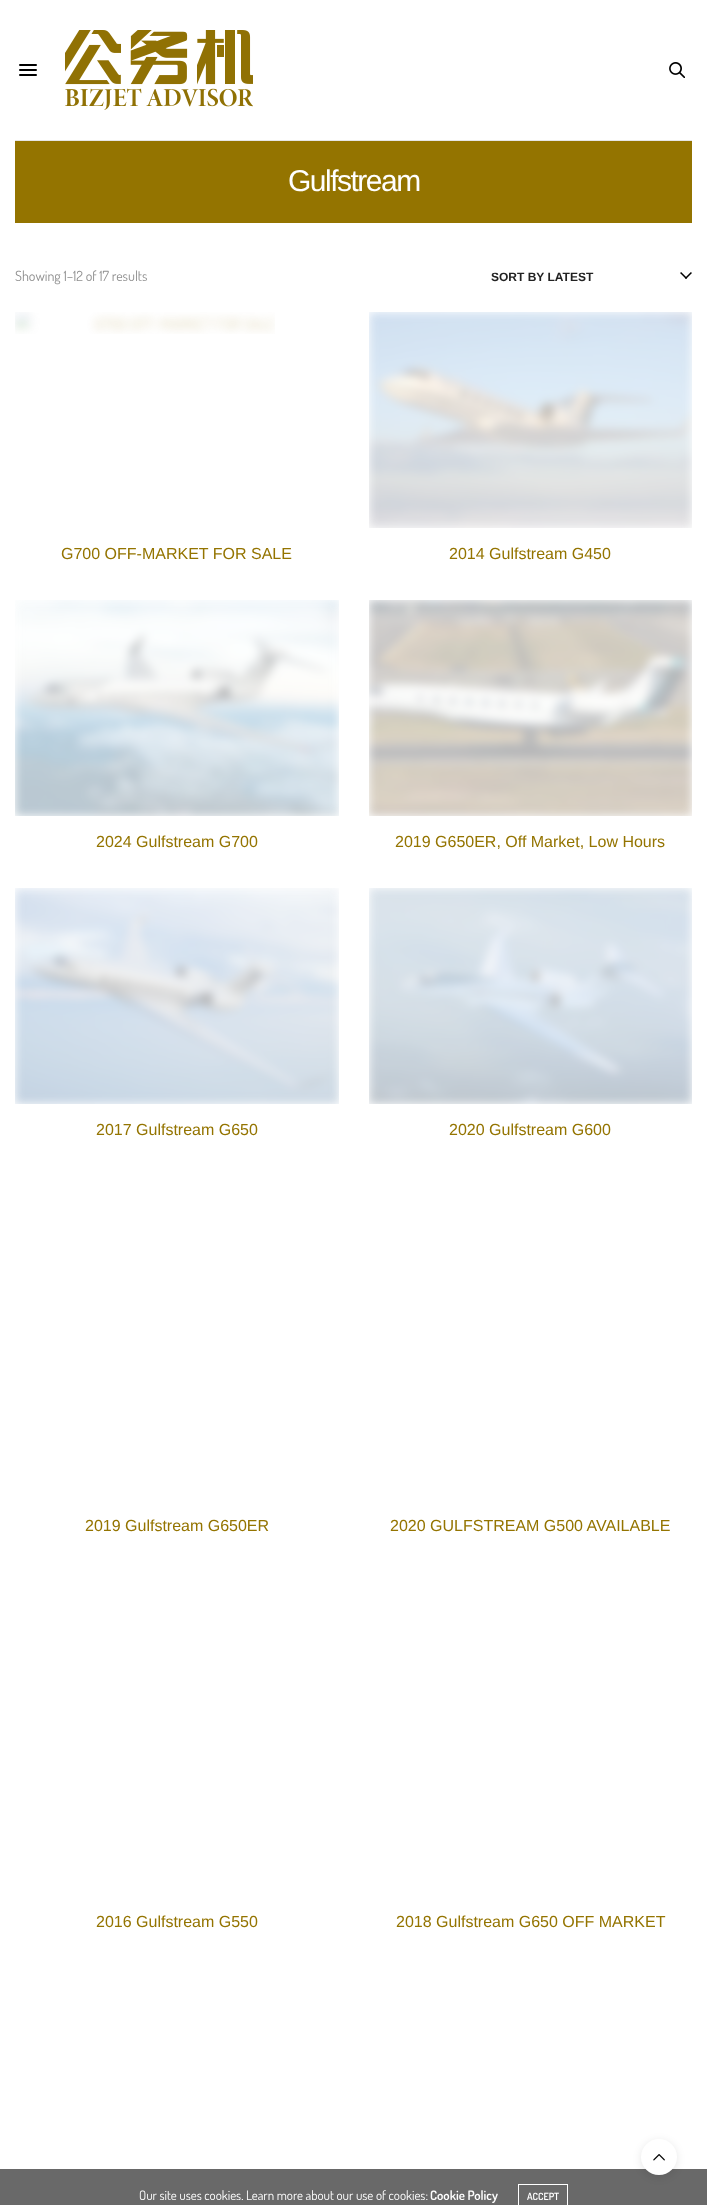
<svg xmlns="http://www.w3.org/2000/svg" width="707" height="2205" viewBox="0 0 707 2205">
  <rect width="100%" height="100%" fill="rgb(255,255,255)"/>
  <rect x="15" y="140" width="677" height="1" fill="rgb(230,230,230)"/>
  <rect x="19" y="64" width="18" height="2" rx="1" fill="rgb(0,0,0)"/>
  <rect x="19" y="69" width="18" height="2" rx="1" fill="rgb(0,0,0)"/>
  <rect x="19" y="74" width="18" height="2" rx="1" fill="rgb(0,0,0)"/>
  <image x="65" y="30" width="188" height="80" href="pic1.png"/>
  <image x="669" y="62" width="16" height="16" href="pic2.png"/>
  <rect x="15" y="141" width="677" height="82" fill="rgb(148,116,0)"/>
  <text x="288" y="191" font-family="Liberation Sans" font-size="30" letter-spacing="-1.5" fill="rgb(255,255,255)">Gulfstream</text>
  <text x="15" y="281" font-family="Dosis" font-size="14" fill="rgb(143,143,143)">Showing 1–12 of 17 results</text>
  <text x="491" y="281" font-family="Liberation Sans" font-size="12" font-weight="bold" fill="rgb(34,34,34)">SORT BY LATEST</text>
  <image x="680" y="272" width="12" height="7" href="pic3.png"/>
  <image x="15" y="312" width="260" height="22" href="pic4.png"/>
  <text x="61" y="559" font-family="Liberation Sans" font-size="16" fill="rgb(148,116,0)">G700 OFF-MARKET FOR SALE</text>
  <image x="369" y="312" width="323" height="216" href="pic5.png"/>
  <text x="449" y="559" font-family="Liberation Sans" font-size="16" fill="rgb(148,116,0)">2014 Gulfstream G450</text>
  <image x="15" y="600" width="324" height="216" href="pic6.png"/>
  <text x="96" y="847" font-family="Liberation Sans" font-size="16" fill="rgb(148,116,0)">2024 Gulfstream G700</text>
  <image x="369" y="600" width="323" height="216" href="pic7.png"/>
  <text x="395" y="847" font-family="Liberation Sans" font-size="16" fill="rgb(148,116,0)">2019 G650ER, Off Market, Low Hours</text>
  <image x="15" y="888" width="324" height="216" href="pic8.png"/>
  <text x="96" y="1135" font-family="Liberation Sans" font-size="16" fill="rgb(148,116,0)">2017 Gulfstream G650</text>
  <image x="369" y="888" width="323" height="216" href="pic9.png"/>
  <g font-family="Liberation Sans" font-size="16" fill="rgb(148,116,0)">
    <text x="449" y="1135">2020 Gulfstream G600</text>
    <text x="85" y="1531">2019 Gulfstream G650ER</text>
    <text x="390" y="1531">2020 GULFSTREAM G500 AVAILABLE</text>
    <text x="96" y="1927">2016 Gulfstream G550</text>
    <text x="396" y="1927">2018 Gulfstream G650 OFF MARKET</text>
  </g>
  <rect x="0" y="2169" width="707" height="36" fill="rgb(105,105,105)"/>
  <rect x="641" y="2141" width="36" height="36" rx="18" fill="rgba(0,0,0,0.1)" filter="blur(4px)"/>
  <circle cx="659" cy="2157" r="18" fill="rgb(255,255,255)"/>
  <image x="653" y="2154" width="12" height="7" href="pic10.png"/>
  <text x="139" y="2200" font-family="Dosis" font-size="13" fill="rgb(255,255,255)">Our site uses cookies. Learn more about our use of cookies:</text>
  <text x="430" y="2200" font-family="Dosis" font-size="13" font-weight="600" fill="rgb(255,255,255)">Cookie Policy</text>
  <rect x="518.5" y="2184.5" width="49" height="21" fill="none" stroke="rgb(255,255,255)"/>
  <text x="527" y="2200" font-family="Dosis" font-size="10" font-weight="600" fill="rgb(255,255,255)">ACCEPT</text>
</svg>
